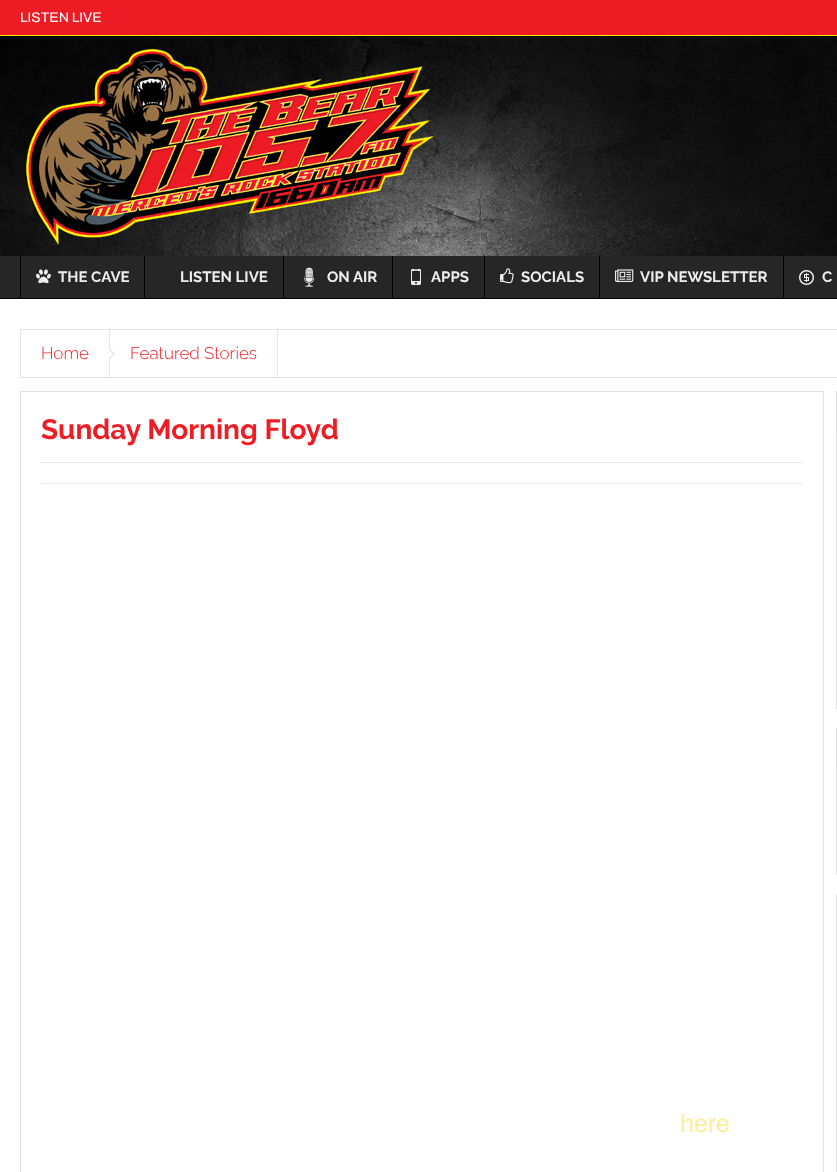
<svg xmlns="http://www.w3.org/2000/svg" width="837" height="1172" viewBox="0 0 837 1172">
  <rect width="100%" height="100%" fill="rgb(255,255,255)"/>
  <rect x="0" y="0" width="837" height="35" fill="rgb(237,28,36)"/>
  <rect x="0" y="35" width="837" height="1" fill="rgb(255,235,2)"/>
  <text x="20" y="22" font-family="Archivo" font-size="14" font-weight="600" fill="rgb(255,255,255)">LISTEN LIVE</text>
  <image x="0" y="36" width="837" height="220" href="pic1.png"/>
  <image x="26" y="49" width="408" height="196" href="pic2.png"/>
  <rect x="0" y="256" width="837" height="42" fill="rgb(38,38,38)"/>
  <rect x="0" y="298" width="837" height="1" fill="rgb(0,0,0)"/>
  <rect x="144" y="256" width="1" height="42" fill="rgb(0,0,0)"/>
  <rect x="20" y="256" width="1" height="42" fill="rgb(0,0,0)"/>
  <image x="36" y="269" width="15" height="15" href="pic3.png"/>
  <text x="58" y="282" font-family="Raleway" font-size="15" font-weight="bold" fill="rgb(237,237,237)">THE CAVE</text>
  <rect x="283" y="256" width="1" height="42" fill="rgb(0,0,0)"/>
  <text x="180" y="282" font-family="Raleway" font-size="15" font-weight="bold" fill="rgb(237,237,237)">LISTEN LIVE</text>
  <rect x="392" y="256" width="1" height="42" fill="rgb(0,0,0)"/>
  <image x="304" y="267" width="11" height="20" href="pic4.png"/>
  <text x="327" y="282" font-family="Raleway" font-size="15" font-weight="bold" fill="rgb(237,237,237)">ON AIR</text>
  <rect x="484" y="256" width="1" height="42" fill="rgb(0,0,0)"/>
  <image x="411" y="269" width="10" height="16" href="pic5.png"/>
  <text x="431" y="282" font-family="Raleway" font-size="15" font-weight="bold" fill="rgb(237,237,237)">APPS</text>
  <rect x="599" y="256" width="1" height="42" fill="rgb(0,0,0)"/>
  <image x="500" y="268" width="14" height="16" href="pic6.png"/>
  <text x="521" y="282" font-family="Raleway" font-size="15" font-weight="bold" fill="rgb(237,237,237)">SOCIALS</text>
  <rect x="783" y="256" width="1" height="42" fill="rgb(0,0,0)"/>
  <image x="615" y="269" width="19" height="13" href="pic7.png"/>
  <text x="640" y="282" font-family="Raleway" font-size="15" font-weight="bold" fill="rgb(237,237,237)">VIP NEWSLETTER</text>
  <image x="799" y="270" width="15" height="15" href="pic8.png"/>
  <text x="822" y="282" font-family="Raleway" font-size="15" font-weight="bold" fill="rgb(237,237,237)">C</text>
  <rect x="20" y="329" width="817" height="1" fill="rgb(229,229,229)"/>
  <rect x="20" y="377" width="817" height="1" fill="rgb(225,225,225)"/>
  <rect x="20" y="329" width="1" height="49" fill="rgb(229,229,229)"/>
  <rect x="109" y="330" width="1" height="47" fill="rgb(229,229,229)"/>
  <text x="41" y="359" font-family="Raleway" font-size="17" font-weight="300" fill="rgb(239,28,36)">Home</text>
  <path d="M109 360V348L115 354Z" fill="rgb(229,229,229)"/>
  <path d="M109 358V350L113 354Z" fill="rgb(255,255,255)"/>
  <rect x="277" y="330" width="1" height="47" fill="rgb(229,229,229)"/>
  <text x="130" y="359" font-family="Raleway" font-size="17" font-weight="300" fill="rgb(239,28,36)">Featured Stories</text>
  <rect x="20.5" y="391.5" width="803" height="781" fill="none" stroke="rgb(225,225,225)"/>
  <text x="41" y="439" font-family="Raleway" font-size="28" font-weight="bold" fill="rgb(239,28,36)">Sunday Morning Floyd</text>
  <rect x="41" y="462" width="762" height="1" fill="rgb(233,233,233)"/>
  <rect x="41" y="483" width="762" height="1" fill="rgb(233,233,233)"/>
  <text x="680" y="1132" font-family="Archivo" font-size="25" font-weight="600" fill="rgb(255,236,153)">here</text>
  <rect x="836" y="708" width="1" height="1" fill="rgb(229,229,229)"/>
  <rect x="836.5" y="391.5" width="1" height="316" fill="none" stroke="rgb(225,225,225)"/>
  <rect x="836.5" y="391.5" width="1" height="39" fill="none" stroke="rgb(219,219,219)"/>
  <rect x="836" y="874" width="1" height="1" fill="rgb(229,229,229)"/>
  <rect x="836.5" y="728.5" width="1" height="145" fill="none" stroke="rgb(225,225,225)"/>
  <rect x="836.5" y="728.5" width="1" height="39" fill="none" stroke="rgb(219,219,219)"/>
  <rect x="836.5" y="894.5" width="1" height="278" fill="none" stroke="rgb(225,225,225)"/>
</svg>
